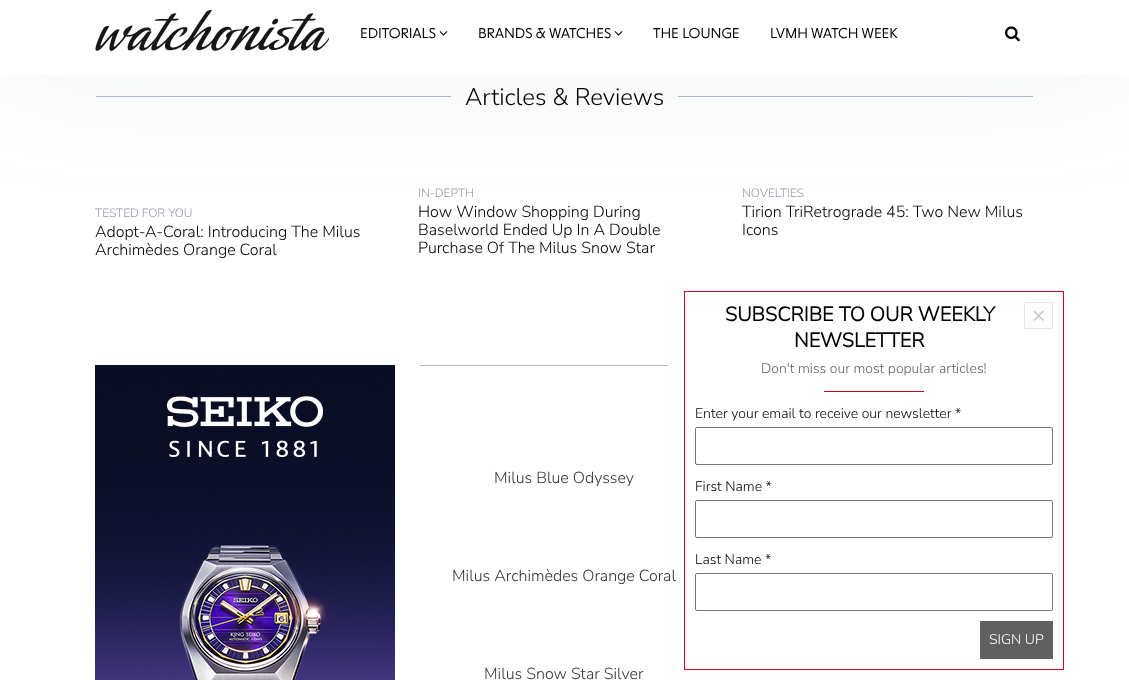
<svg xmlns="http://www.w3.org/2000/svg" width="1129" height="680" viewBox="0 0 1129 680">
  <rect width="100%" height="100%" fill="rgb(255,255,255)"/>
  <rect x="96" y="96" width="355" height="1" fill="rgb(177,185,196)"/>
  <rect x="678" y="96" width="355" height="1" fill="rgb(177,185,196)"/>
  <rect x="0" y="-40" width="1129" height="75" fill="rgba(104,118,140,0.2)" filter="blur(76px)"/>
  <rect x="0" y="0" width="1129" height="75" fill="rgb(255,255,255)"/>
  <image x="95" y="10" width="234" height="41" href="pic1.png"/>
  <text x="360" y="38" font-family="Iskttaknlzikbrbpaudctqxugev" font-size="14" font-weight="300" fill="rgb(0,0,0)">EDITORIALS</text>
  <image x="439" y="31" width="9" height="5" href="pic2.png"/>
  <text x="478" y="38" font-family="Iskttaknlzikbrbpaudctqxugev" font-size="14" font-weight="300" fill="rgb(0,0,0)">BRANDS &amp; WATCHES</text>
  <image x="614" y="31" width="9" height="5" href="pic2.png"/>
  <g font-family="Iskttaknlzikbrbpaudctqxugev" font-size="14" font-weight="300" fill="rgb(0,0,0)">
    <text x="653" y="38">THE LOUNGE</text>
    <text x="770" y="38">LVMH WATCH WEEK</text>
  </g>
  <image x="1005" y="26" width="15" height="16" href="pic3.png"/>
  <text x="465" y="105" font-family="Nunito Sans" font-size="24" font-weight="200" fill="rgb(0,0,0)">Articles &amp; Reviews</text>
  <text x="95" y="217" font-family="Nunito Sans" font-size="12" font-weight="200" fill="rgb(146,151,163)">TESTED FOR YOU</text>
  <g font-family="Nunito Sans" font-size="16" font-weight="200" fill="rgb(0,0,0)">
    <text>
      <tspan x="95" y="237">Adopt-A-Coral: Introducing The Milus</tspan>
      <tspan x="95" y="255">Archimèdes Orange Coral</tspan>
    </text>
  </g>
  <text x="418" y="197" font-family="Nunito Sans" font-size="12" font-weight="200" fill="rgb(146,151,163)">IN-DEPTH</text>
  <g font-family="Nunito Sans" font-size="16" font-weight="200" fill="rgb(0,0,0)">
    <text>
      <tspan x="418" y="217">How Window Shopping During</tspan>
      <tspan x="418" y="235">Baselworld Ended Up In A Double</tspan>
      <tspan x="418" y="253">Purchase Of The Milus Snow Star</tspan>
    </text>
  </g>
  <text x="742" y="197" font-family="Nunito Sans" font-size="12" font-weight="200" fill="rgb(146,151,163)">NOVELTIES</text>
  <g font-family="Nunito Sans" font-size="16" font-weight="200" fill="rgb(0,0,0)">
    <text>
      <tspan x="742" y="217">Tirion TriRetrograde 45: Two New Milus</tspan>
      <tspan x="742" y="235">Icons</tspan>
    </text>
  </g>
  <image x="95" y="365" width="300" height="315" href="pic4.png"/>
  <rect x="420" y="365" width="248" height="1" fill="rgb(177,185,196)"/>
  <g font-family="Nunito Sans" font-size="16" font-weight="200" fill="rgb(52,52,52)">
    <text x="494" y="483">Milus Blue Odyssey</text>
    <text x="452" y="581">Milus Archimèdes Orange Coral</text>
    <text x="484" y="679">Milus Snow Star Silver</text>
  </g>
  <rect x="684.5" y="291.5" width="379" height="378" fill="none" stroke="rgb(208,2,27)"/>
  <g font-family="Nunito Sans" font-size="20" font-weight="bold" fill="rgb(0,0,0)">
    <text x="725" y="321">SUBSCRIBE TO OUR WEEKLY</text>
    <text x="794" y="347">NEWSLETTER</text>
  </g>
  <text x="761" y="373" font-family="Nunito Sans" font-size="14" font-weight="200" fill="rgb(96,96,96)">Don't miss our most popular articles!</text>
  <rect x="824" y="391" width="100" height="1" fill="rgb(208,2,24)"/>
  <text x="695" y="418" font-family="Nunito Sans" font-size="14" font-weight="200" fill="rgb(0,0,0)">Enter your email to receive our newsletter *</text>
  <rect x="695.5" y="427.5" width="357" height="37" rx="1.5" fill="none" stroke="rgb(118,118,118)"/>
  <text x="695" y="491" font-family="Nunito Sans" font-size="14" font-weight="200" fill="rgb(0,0,0)">First Name *</text>
  <rect x="695.5" y="500.5" width="357" height="37" rx="1.5" fill="none" stroke="rgb(118,118,118)"/>
  <text x="695" y="564" font-family="Nunito Sans" font-size="14" font-weight="200" fill="rgb(0,0,0)">Last Name *</text>
  <rect x="695.5" y="573.5" width="357" height="37" rx="1.5" fill="none" stroke="rgb(118,118,118)"/>
  <rect x="980" y="621" width="73" height="38" fill="rgb(96,96,96)"/>
  <text x="989" y="644" font-family="Nunito Sans" font-size="14" font-weight="200" fill="rgb(255,255,255)">SIGN UP</text>
  <rect x="1024.5" y="302.5" width="28" height="26" rx="1.5" fill="rgb(252,252,252)" stroke="rgb(228,228,228)"/>
  <text x="1032" y="322" font-family="Nunito Sans" font-size="21" font-weight="bold" fill="rgb(204,204,204)">×</text>
</svg>
